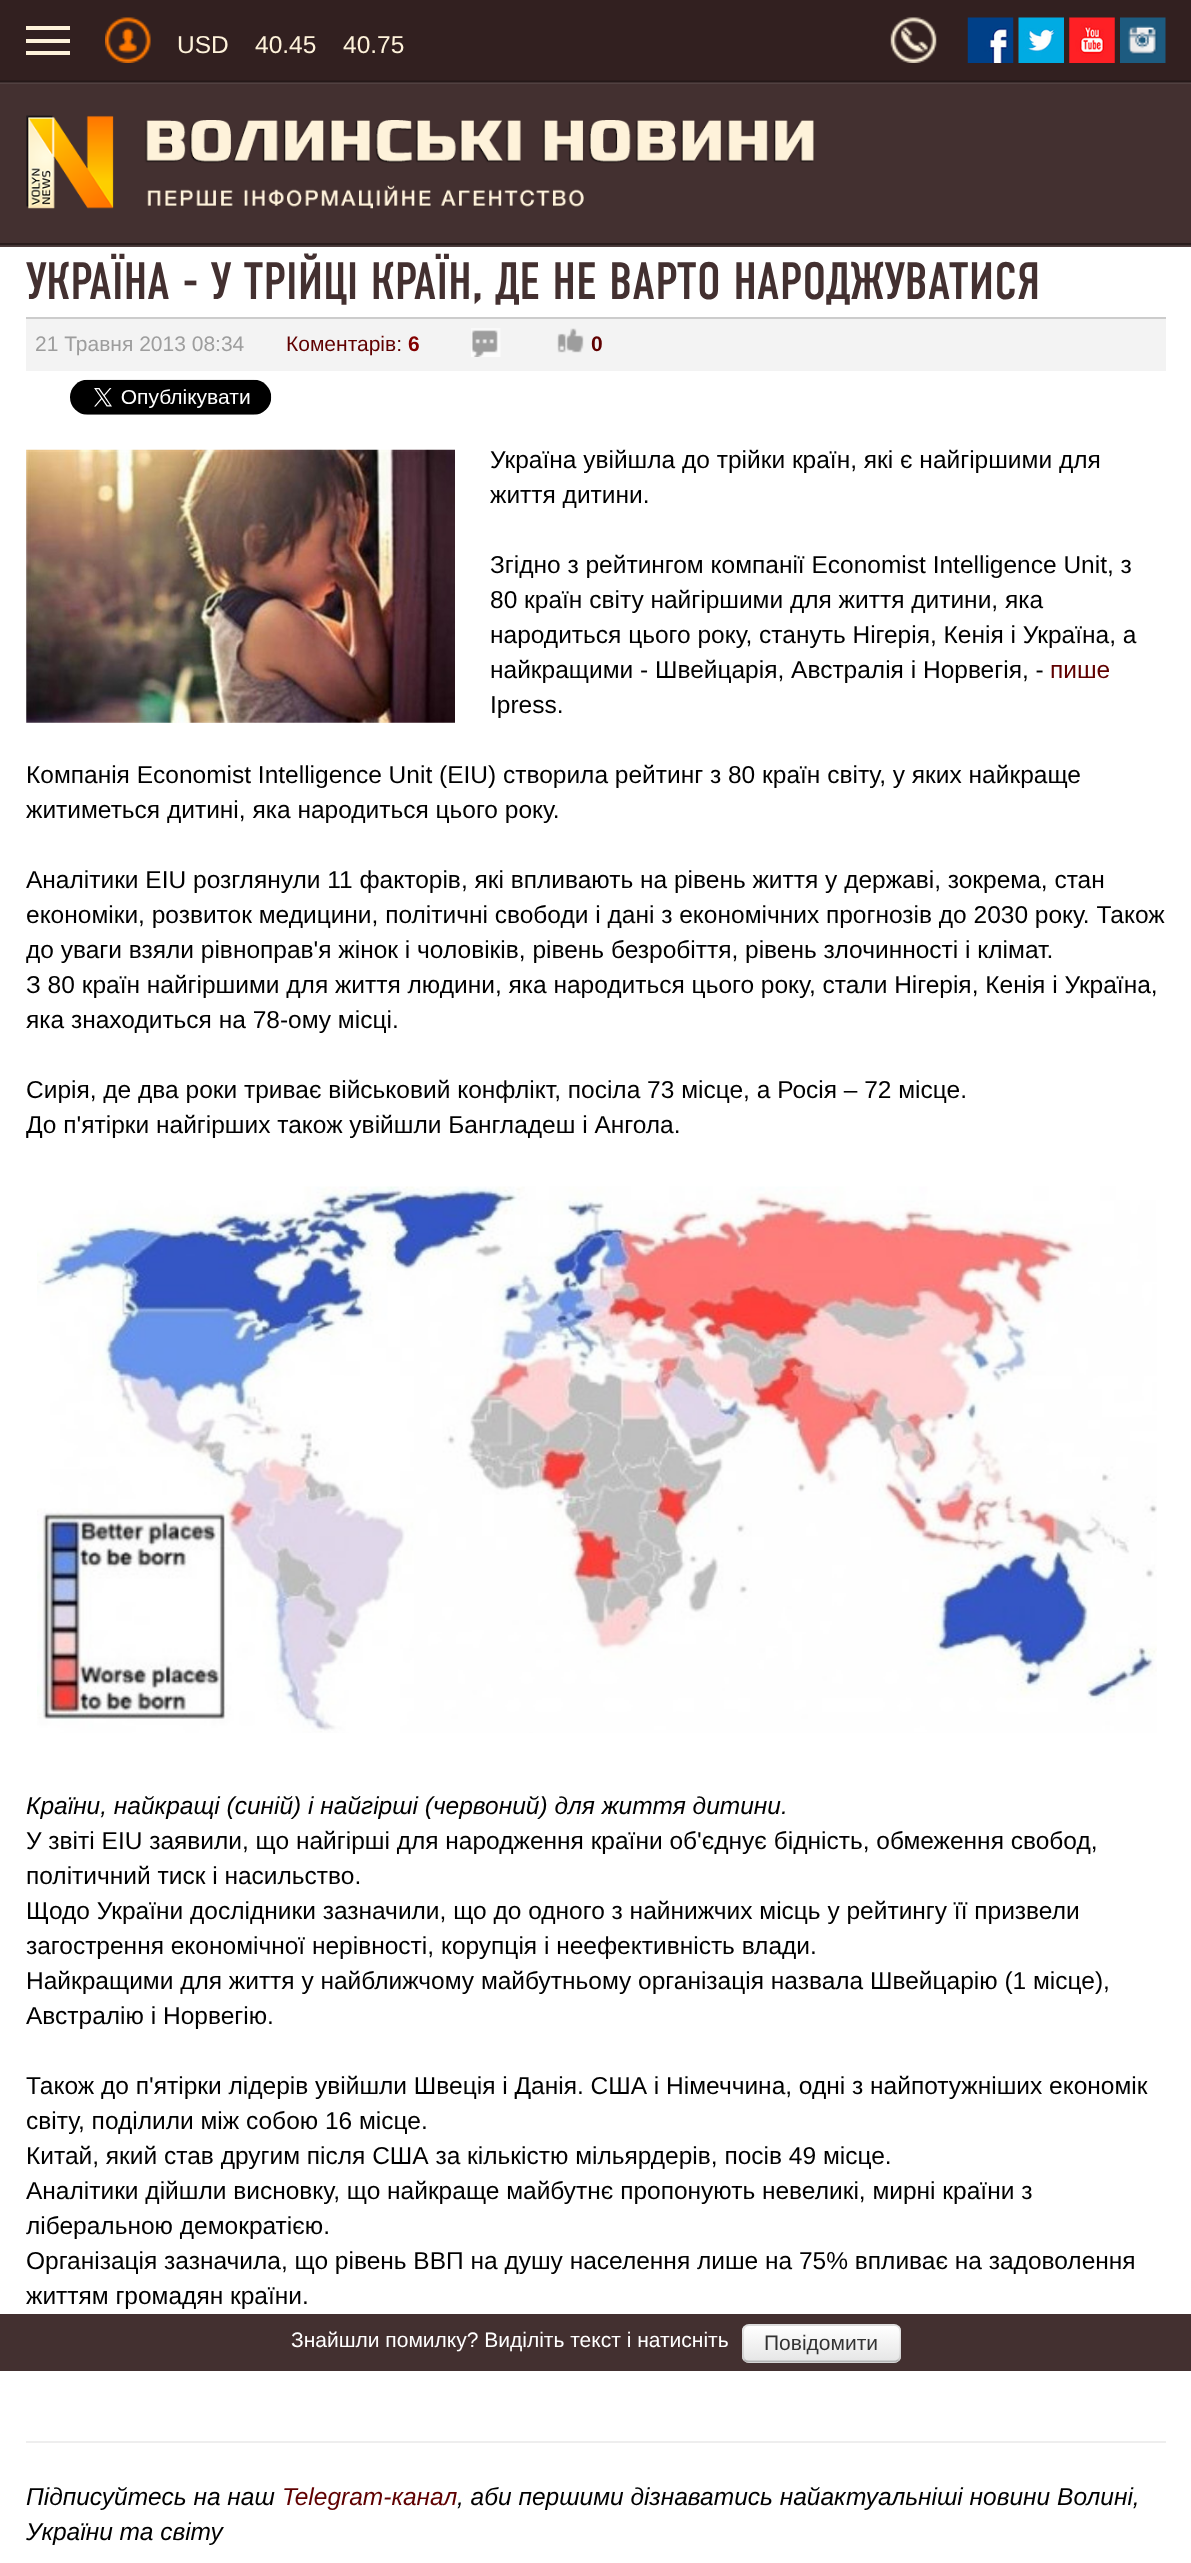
<svg xmlns="http://www.w3.org/2000/svg" width="1191" height="2563" viewBox="0 0 1191 2563">
  <defs>
    <clipPath id="clip1"><rect x="742" y="2324" width="159" height="39" rx="7"/></clipPath>
    <linearGradient id="g1" gradientUnits="userSpaceOnUse" x1="822" y1="2326" x2="822" y2="2361"><stop offset="0" stop-color="rgb(255,255,255)"/><stop offset="1" stop-color="rgb(230,230,230)"/></linearGradient>
  </defs>
  <rect width="100%" height="100%" fill="rgb(255,255,255)"/>
  <rect x="0" y="84" width="1191" height="163" fill="rgb(67,48,48)"/>
  <rect x="0" y="0" width="1191" height="81" fill="rgb(50,32,32)"/>
  <rect x="26" y="26" width="44" height="4" fill="rgb(254,242,218)"/>
  <rect x="26" y="39" width="44" height="4" fill="rgb(254,242,218)"/>
  <rect x="26" y="51" width="44" height="4" fill="rgb(254,242,218)"/>
  <image x="105" y="17" width="46" height="46" href="pic1.png"/>
  <g font-family="Liberation Sans" font-size="24.5" fill="rgb(254,242,218)">
    <text x="177" y="53">USD</text>
    <text x="255" y="53">40.45</text>
    <text x="343" y="53">40.75</text>
  </g>
  <image x="890" y="17" width="47" height="46" href="pic2.png"/>
  <image x="967" y="17" width="47" height="46" href="pic3.png"/>
  <image x="1018" y="17" width="46" height="46" href="pic4.png"/>
  <image x="1069" y="17" width="46" height="46" href="pic5.png"/>
  <image x="1120" y="17" width="46" height="46" href="pic6.png"/>
  <image x="0" y="80" width="1191" height="4" href="pic7.png"/>
  <image x="26" y="115" width="788" height="94" href="pic8.png"/>
  <image x="0" y="243" width="1191" height="4" href="pic9.png"/>
  <text x="26" y="299" font-family="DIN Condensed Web" font-size="52.5" fill="rgb(67,48,48)">УКРАЇНА - У ТРІЙЦІ КРАЇН, ДЕ НЕ ВАРТО НАРОДЖУВАТИСЯ</text>
  <rect x="26" y="319" width="1140" height="52" fill="rgb(243,243,243)"/>
  <rect x="26" y="317" width="1140" height="2" fill="rgb(204,204,204)"/>
  <text x="35" y="351" font-family="Liberation Sans" font-size="21" fill="rgb(157,157,157)">21 Травня 2013 08:34</text>
  <text x="286" y="351" font-family="Liberation Sans" font-size="21" fill="rgb(96,0,0)">Коментарів:</text>
  <text x="408" y="351" font-family="Liberation Sans" font-size="21" font-weight="bold" fill="rgb(131,0,0)">6</text>
  <image x="471" y="328" width="30" height="29" href="pic10.png"/>
  <image x="557" y="328" width="27" height="25" href="pic11.png"/>
  <text x="591" y="351" font-family="Liberation Sans" font-size="21" font-weight="bold" fill="rgb(96,0,0)">0</text>
  <image x="70" y="379" width="202" height="36" href="pic12.png"/>
  <image x="26" y="449" width="429" height="274" href="pic13.png"/>
  <g font-family="Liberation Sans" font-size="24.5" fill="rgb(0,0,0)">
    <text>
      <tspan x="490" y="468">Україна увійшла до трійки країн, які є найгіршими для</tspan>
      <tspan x="490" y="503">життя дитини.</tspan>
    </text>
    <text>
      <tspan x="490" y="573">Згідно з рейтингом компанії Economist Intelligence Unit, з</tspan>
      <tspan x="490" y="608">80 країн світу найгіршими для життя дитини, яка</tspan>
      <tspan x="490" y="643">народиться цього року, стануть Нігерія, Кенія і Україна, а</tspan>
      <tspan x="490" y="678">найкращими - Швейцарія, Австралія і Норвегія, -</tspan>
    </text>
  </g>
  <text x="1050" y="678" font-family="Liberation Sans" font-size="24.5" fill="rgb(96,0,0)">пише</text>
  <g font-family="Liberation Sans" font-size="24.5" fill="rgb(0,0,0)">
    <text x="490" y="713">Ipress.</text>
    <text>
      <tspan x="26" y="783">Компанія Economist Intelligence Unit (EIU) створила рейтинг з 80 країн світу, у яких найкраще</tspan>
      <tspan x="26" y="818">житиметься дитині, яка народиться цього року.</tspan>
    </text>
    <text>
      <tspan x="26" y="888">Аналітики EIU розглянули 11 факторів, які впливають на рівень життя у державі, зокрема, стан</tspan>
      <tspan x="26" y="923">економіки, розвиток медицини, політичні свободи і дані з економічних прогнозів до 2030 року. Також</tspan>
      <tspan x="26" y="958">до уваги взяли рівноправ'я жінок і чоловіків, рівень безробіття, рівень злочинності і клімат.</tspan>
      <tspan x="26" y="993">З 80 країн найгіршими для життя людини, яка народиться цього року, стали Нігерія, Кенія і Україна,</tspan>
      <tspan x="26" y="1028">яка знаходиться на 78-ому місці.</tspan>
    </text>
    <text>
      <tspan x="26" y="1098">Сирія, де два роки триває військовий конфлікт, посіла 73 місце, а Росія – 72 місце.</tspan>
      <tspan x="26" y="1133">До п'ятірки найгірших також увійшли Бангладеш і Ангола.</tspan>
    </text>
  </g>
  <image x="37" y="1186" width="1120" height="547" href="pic14.png"/>
  <text x="26" y="1814" font-family="Liberation Sans" font-size="24.5" font-style="italic" fill="rgb(0,0,0)">Країни, найкращі (синій) і найгірші (червоний) для життя дитини.</text>
  <g font-family="Liberation Sans" font-size="24.5" fill="rgb(0,0,0)">
    <text>
      <tspan x="26" y="1849">У звіті EIU заявили, що найгірші для народження країни об'єднує бідність, обмеження свобод,</tspan>
      <tspan x="26" y="1884">політичний тиск і насильство.</tspan>
      <tspan x="26" y="1919">Щодо України дослідники зазначили, що до одного з найнижчих місць у рейтингу її призвели</tspan>
      <tspan x="26" y="1954">загострення економічної нерівності, корупція і неефективність влади.</tspan>
      <tspan x="26" y="1989">Найкращими для життя у найближчому майбутньому організація назвала Швейцарію (1 місце),</tspan>
      <tspan x="26" y="2024">Австралію і Норвегію.</tspan>
    </text>
    <text>
      <tspan x="26" y="2094">Також до п'ятірки лідерів увійшли Швеція і Данія. США і Німеччина, одні з найпотужніших економік</tspan>
      <tspan x="26" y="2129">світу, поділили між собою 16 місце.</tspan>
      <tspan x="26" y="2164">Китай, який став другим після США за кількістю мільярдерів, посів 49 місце.</tspan>
      <tspan x="26" y="2199">Аналітики дійшли висновку, що найкраще майбутнє пропонують невеликі, мирні країни з</tspan>
      <tspan x="26" y="2234">ліберальною демократією.</tspan>
      <tspan x="26" y="2269">Організація зазначила, що рівень ВВП на душу населення лише на 75% впливає на задоволення</tspan>
      <tspan x="26" y="2304">життям громадян країни.</tspan>
    </text>
  </g>
  <rect x="0" y="2314" width="1191" height="57" fill="rgb(67,48,48)"/>
  <text x="291" y="2347" font-family="Liberation Sans" font-size="21" fill="rgb(255,255,255)">Знайшли помилку? Виділіть текст і натисніть</text>
  <rect x="742" y="2324" width="159" height="39" rx="7" fill="rgb(245,245,245)"/>
  <g clip-path="url(#clip1)">
    <rect x="742" y="2326" width="159" height="35" fill="url(#g1)"/>
  </g>
  <path d="M898.5 2360L895 2361.5H748.5C747 2361.5 745.5 2361 744.5 2360" fill="none" stroke="rgb(179,179,179)" stroke-width="1.8"/>
  <path d="M744.5 2360C742.5 2357.5 743 2354.5 743 2351.5V2339C743 2334.5 741.5 2325 749 2325H894C902 2325 900.5 2334.5 900.5 2339V2351.5C900.5 2354.5 901 2357.5 898.5 2360" fill="none" stroke="rgba(0,0,0,0.1)" stroke-width="1.8"/>
  <text x="764" y="2350" font-family="Liberation Sans" font-size="21" fill="rgb(51,51,51)">Повідомити</text>
  <rect x="26" y="2441" width="1140" height="2" fill="rgb(238,238,238)"/>
  <text x="26" y="2505" font-family="Liberation Sans" font-size="24.5" font-style="italic" fill="rgb(0,0,0)">Підписуйтесь на наш</text>
  <text x="282" y="2505" font-family="Liberation Sans" font-size="24.5" font-style="italic" fill="rgb(96,0,0)">Telegram-канал</text>
  <g font-family="Liberation Sans" font-size="24.5" font-style="italic" fill="rgb(0,0,0)">
    <text x="457" y="2505">, аби першими дізнаватись найактуальніші новини Волині,</text>
    <text x="26" y="2540">України та світу</text>
  </g>
</svg>
